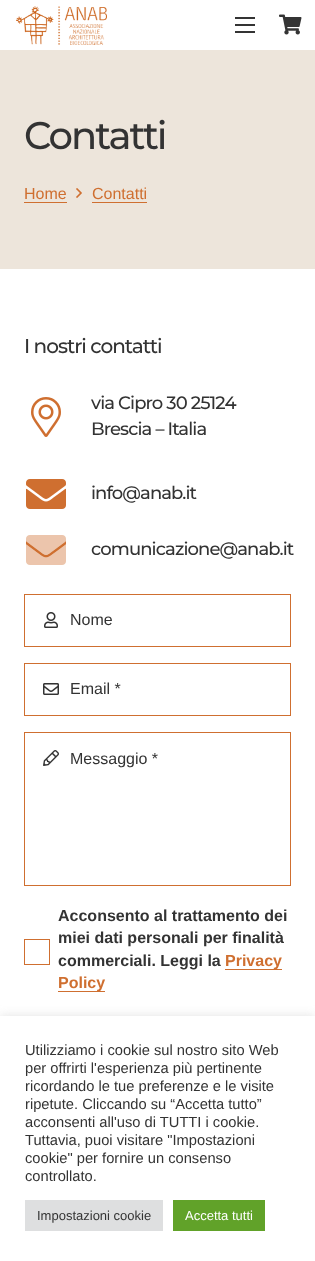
<svg xmlns="http://www.w3.org/2000/svg" width="315" height="1261" viewBox="0 0 315 1261">
  <rect width="100%" height="100%" fill="rgb(255,255,255)"/>
  <image x="16" y="6" width="91" height="39" href="pic1.png"/>
  <rect x="235" y="24" width="20" height="2" fill="rgb(52,52,52)"/>
  <rect x="235" y="17" width="20" height="2" fill="rgb(52,52,52)"/>
  <rect x="235" y="31" width="20" height="2" fill="rgb(52,52,52)"/>
  <image x="279" y="14" width="23" height="21" href="pic2.png"/>
  <rect x="0" y="50" width="315" height="219" fill="rgb(237,229,219)"/>
  <text x="24" y="149" font-family="Montserrat" font-size="38.5" font-weight="500" letter-spacing="-2" fill="rgb(51,51,51)">Contatti</text>
  <text x="24" y="199" font-family="Liberation Sans" font-size="16" fill="rgb(207,111,48)">Home</text>
  <rect x="24" y="202" width="43" height="1" fill="rgb(207,111,48)"/>
  <image x="76" y="188" width="6" height="10" href="pic3.png"/>
  <text x="92" y="199" font-family="Liberation Sans" font-size="16" fill="rgb(207,111,48)">Contatti</text>
  <rect x="92" y="202" width="55" height="1" fill="rgb(207,111,48)"/>
  <text x="24" y="353" font-family="Montserrat" font-size="20" font-weight="500" letter-spacing="-1" fill="rgb(51,51,51)">I nostri contatti</text>
  <image x="31" y="397" width="30" height="40" href="pic4.png"/>
  <g font-family="Montserrat" font-size="18" font-weight="500" letter-spacing="-0.9" fill="rgb(51,51,51)">
    <text>
      <tspan x="91" y="409">via Cipro 30 25124</tspan>
      <tspan x="91" y="435">Brescia – Italia</tspan>
    </text>
  </g>
  <image x="26" y="479" width="40" height="30" href="pic5.png"/>
  <text x="91" y="499" font-family="Montserrat" font-size="18" font-weight="500" letter-spacing="-0.9" fill="rgb(51,51,51)">info@anab.it</text>
  <image x="26" y="540" width="40" height="18" href="pic7.png"/>
  <image x="26" y="535" width="40" height="30" href="pic6.png"/>
  <text x="91" y="555" font-family="Montserrat" font-size="18" font-weight="500" letter-spacing="-0.9" fill="rgb(51,51,51)">comunicazione@anab.it</text>
  <rect x="24.5" y="594.5" width="266" height="52" fill="none" stroke="rgb(207,111,48)"/>
  <image x="44" y="612" width="14" height="16" href="pic8.png"/>
  <text x="70" y="625" font-family="Liberation Sans" font-size="16" fill="rgb(51,51,51)">Nome</text>
  <rect x="24.5" y="663.5" width="266" height="52" fill="none" stroke="rgb(207,111,48)"/>
  <image x="43" y="683" width="16" height="12" href="pic9.png"/>
  <text x="70" y="694" font-family="Liberation Sans" font-size="16" fill="rgb(51,51,51)">Email *</text>
  <rect x="24.5" y="732.5" width="266" height="153" fill="none" stroke="rgb(207,111,48)"/>
  <image x="43" y="750" width="16" height="16" href="pic10.png"/>
  <text x="70" y="764" font-family="Liberation Sans" font-size="16" fill="rgb(51,51,51)">Messaggio *</text>
  <rect x="24.5" y="939.5" width="25" height="25" fill="none" stroke="rgb(207,111,48)"/>
  <g font-family="Liberation Sans" font-size="16" font-weight="bold" fill="rgb(51,51,51)">
    <text>
      <tspan x="58" y="921">Acconsento al trattamento dei</tspan>
      <tspan x="58" y="943">miei dati personali per finalità</tspan>
      <tspan x="58" y="966">commerciali. Leggi la</tspan>
    </text>
  </g>
  <rect x="225" y="969" width="57" height="1" fill="rgb(207,111,48)"/>
  <text x="225" y="966" font-family="Liberation Sans" font-size="16" font-weight="bold" fill="rgb(207,111,48)">Privacy</text>
  <rect x="58" y="991" width="47" height="1" fill="rgb(207,111,48)"/>
  <text x="58" y="988" font-family="Liberation Sans" font-size="16" font-weight="bold" fill="rgb(207,111,48)">Policy</text>
  <rect x="0" y="1015" width="315" height="245" fill="rgba(172,171,171,0.3)" filter="blur(5px)"/>
  <rect x="0" y="1016" width="315" height="245" fill="rgb(255,255,255)"/>
  <g font-family="Liberation Sans" font-size="14.7" fill="rgb(51,51,51)">
    <text>
      <tspan x="25" y="1055">Utilizziamo i cookie sul nostro sito Web</tspan>
      <tspan x="25" y="1073">per offrirti l'esperienza più pertinente</tspan>
      <tspan x="25" y="1091">ricordando le tue preferenze e le visite</tspan>
      <tspan x="25" y="1109">ripetute. Cliccando su “Accetta tutto”</tspan>
      <tspan x="25" y="1127">acconsenti all'uso di TUTTI i cookie.</tspan>
      <tspan x="25" y="1145">Tuttavia, puoi visitare "Impostazioni</tspan>
      <tspan x="25" y="1163">cookie" per fornire un consenso</tspan>
      <tspan x="25" y="1181">controllato.</tspan>
    </text>
  </g>
  <rect x="25" y="1200" width="138" height="31" fill="rgb(222,223,224)"/>
  <text x="37" y="1220" font-family="Liberation Sans" font-size="13" fill="rgb(51,51,51)">Impostazioni cookie</text>
  <rect x="173" y="1200" width="92" height="31" fill="rgb(97,162,41)"/>
  <text x="185" y="1220" font-family="Liberation Sans" font-size="13" fill="rgb(255,255,255)">Accetta tutti</text>
</svg>
